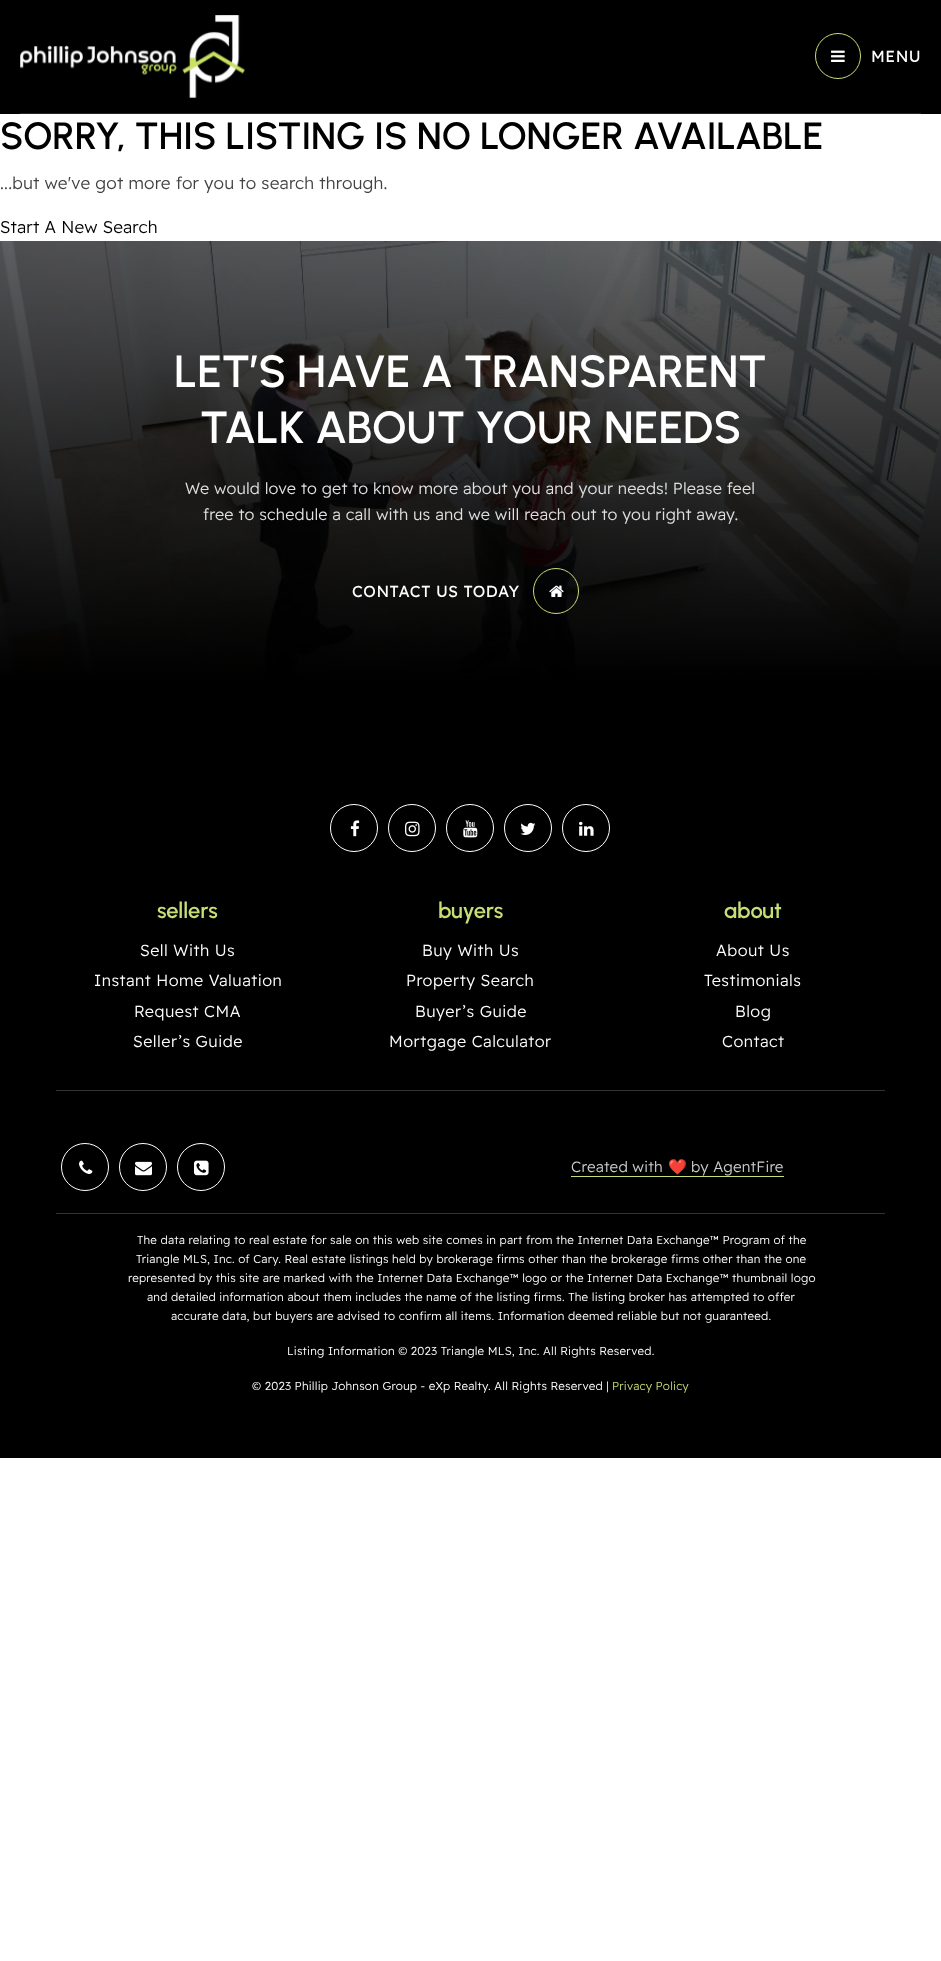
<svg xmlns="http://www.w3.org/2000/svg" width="941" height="1961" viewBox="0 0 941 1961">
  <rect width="100%" height="100%" fill="rgb(255,255,255)"/>
  <rect x="0" y="0" width="941" height="114" fill="rgb(0,0,0)"/>
  <rect x="20" y="113" width="901" height="1" fill="rgb(38,38,38)"/>
  <image x="20" y="15" width="225" height="83" href="pic1.png"/>
  <circle cx="838" cy="56" r="22.5" fill="none" stroke="rgb(199,221,118)"/>
  <image x="831" y="50" width="14" height="12" href="pic2.png"/>
  <text x="871" y="62" font-family="Readex Pro" font-size="16" letter-spacing="0.5" fill="rgb(255,255,255)">MENU</text>
  <text x="0" y="149" font-family="Urbanist" font-size="38" font-weight="600" fill="rgb(0,0,0)">SORRY, THIS LISTING IS NO LONGER AVAILABLE</text>
  <text x="0" y="189" font-family="Readex Pro" font-size="17" font-weight="300" letter-spacing="0.2" fill="rgb(67,66,65)">...but we've got more for you to search through.</text>
  <text x="0" y="233" font-family="Readex Pro" font-size="17" font-weight="300" letter-spacing="0.2" fill="rgb(0,0,0)">Start A New Search</text>
  <image x="0" y="241" width="941" height="441" href="pic3.png"/>
  <g font-family="Urbanist" font-size="45" font-weight="600" fill="rgb(255,255,255)">
    <text x="174" y="387">LET’S HAVE A TRANSPARENT</text>
    <text x="200" y="443">TALK ABOUT YOUR NEEDS</text>
  </g>
  <g font-family="Readex Pro" font-size="16" font-weight="300" letter-spacing="0.2" fill="rgb(224,224,224)">
    <text x="185" y="494">We would love to get to know more about you and your needs! Please feel</text>
    <text x="203" y="520">free to schedule a call with us and we will reach out to you right away.</text>
  </g>
  <text x="352" y="597" font-family="Readex Pro" font-size="16" letter-spacing="0.5" fill="rgb(255,255,255)">CONTACT US TODAY</text>
  <circle cx="556" cy="591" r="22.5" fill="none" stroke="rgb(199,221,118)"/>
  <image x="549" y="585" width="15" height="12" href="pic4.png"/>
  <rect x="0" y="682" width="941" height="776" fill="rgb(0,0,0)"/>
  <circle cx="354" cy="828" r="23.5" fill="none" stroke="rgb(255,255,255)"/>
  <image x="350" y="820" width="10" height="17" href="pic5.png"/>
  <circle cx="412" cy="828" r="23.5" fill="none" stroke="rgb(255,255,255)"/>
  <image x="405" y="821" width="15" height="16" href="pic6.png"/>
  <circle cx="470" cy="828" r="23.5" fill="none" stroke="rgb(255,255,255)"/>
  <image x="463" y="820" width="15" height="18" href="pic7.png"/>
  <circle cx="528" cy="828" r="23.5" fill="none" stroke="rgb(255,255,255)"/>
  <image x="520" y="822" width="16" height="13" href="pic8.png"/>
  <circle cx="586" cy="828" r="23.5" fill="none" stroke="rgb(255,255,255)"/>
  <image x="579" y="821" width="15" height="15" href="pic9.png"/>
  <text x="157" y="918" font-family="Urbanist" font-size="22" font-weight="600" fill="rgb(199,221,118)">sellers</text>
  <g font-family="Readex Pro" font-size="16" font-weight="300" letter-spacing="0.5" fill="rgb(255,255,255)">
    <text x="140" y="956">Sell With Us</text>
    <text x="94" y="986">Instant Home Valuation</text>
    <text x="134" y="1017">Request CMA</text>
    <text x="133" y="1047">Seller’s Guide</text>
  </g>
  <text x="438" y="918" font-family="Urbanist" font-size="22" font-weight="600" fill="rgb(199,221,118)">buyers</text>
  <g font-family="Readex Pro" font-size="16" font-weight="300" letter-spacing="0.5" fill="rgb(255,255,255)">
    <text x="422" y="956">Buy With Us</text>
    <text x="406" y="986">Property Search</text>
    <text x="415" y="1017">Buyer’s Guide</text>
    <text x="389" y="1047">Mortgage Calculator</text>
  </g>
  <text x="724" y="918" font-family="Urbanist" font-size="22" font-weight="600" fill="rgb(199,221,118)">about</text>
  <g font-family="Readex Pro" font-size="16" font-weight="300" letter-spacing="0.5" fill="rgb(255,255,255)">
    <text x="716" y="956">About Us</text>
    <text x="704" y="986">Testimonials</text>
    <text x="735" y="1017">Blog</text>
    <text x="722" y="1047">Contact</text>
  </g>
  <rect x="56" y="1090" width="829" height="1" fill="rgb(51,51,51)"/>
  <rect x="56" y="1213" width="829" height="1" fill="rgb(51,51,51)"/>
  <circle cx="85" cy="1167" r="23.5" fill="none" stroke="rgb(255,255,255)"/>
  <image x="79" y="1160" width="14" height="14" href="pic10.png"/>
  <circle cx="143" cy="1167" r="23.5" fill="none" stroke="rgb(255,255,255)"/>
  <image x="135" y="1161" width="17" height="15" href="pic11.png"/>
  <circle cx="201" cy="1167" r="23.5" fill="none" stroke="rgb(255,255,255)"/>
  <image x="194" y="1160" width="15" height="16" href="pic12.png"/>
  <text x="571" y="1172" font-family="Readex Pro" font-size="15" font-weight="300" letter-spacing="0.2" fill="rgb(204,204,204)">Created with</text>
  <text x="668" y="1172" font-family="Noto Color Emoji" font-size="15" letter-spacing="0.2" fill="rgb(204,204,204)">❤️</text>
  <text x="691" y="1172" font-family="Readex Pro" font-size="15" font-weight="300" letter-spacing="0.2" fill="rgb(204,204,204)">by AgentFire</text>
  <rect x="571" y="1176" width="213" height="1" fill="rgb(199,221,118)"/>
  <g font-family="Readex Pro" font-size="11.5" font-weight="300" letter-spacing="0.2" fill="rgb(255,255,255)">
    <text x="137" y="1244">The data relating to real estate for sale on this web site comes in part from the Internet Data Exchange™ Program of the</text>
    <text x="136" y="1263">Triangle MLS, Inc. of Cary. Real estate listings held by brokerage firms other than the brokerage firms other than the one</text>
    <text x="128" y="1282">represented by this site are marked with the Internet Data Exchange™ logo or the Internet Data Exchange™ thumbnail logo</text>
    <text x="147" y="1301">and detailed information about them includes the name of the listing firms. The listing broker has attempted to offer</text>
    <text x="171" y="1320">accurate data, but buyers are advised to confirm all items. Information deemed reliable but not guaranteed.</text>
    <text x="287" y="1355">Listing Information © 2023 Triangle MLS, Inc. All Rights Reserved.</text>
    <text x="252" y="1390">© 2023 Phillip Johnson Group - eXp Realty. All Rights Reserved |</text>
  </g>
  <text x="612" y="1390" font-family="Readex Pro" font-size="11.5" font-weight="300" letter-spacing="0.2" fill="rgb(199,221,118)">Privacy Policy</text>
</svg>
